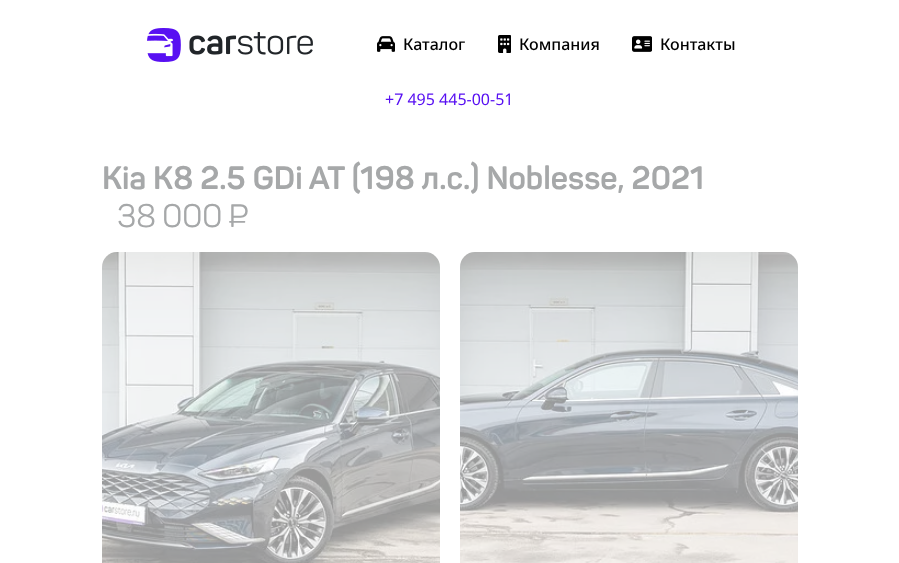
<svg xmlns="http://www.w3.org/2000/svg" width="899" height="563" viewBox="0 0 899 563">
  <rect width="100%" height="100%" fill="rgb(255,255,255)"/>
  <image x="147" y="28" width="166" height="34" href="pic1.png"/>
  <image x="377" y="36" width="18" height="16" href="pic2.png"/>
  <text x="403" y="50" font-family="Noto Sans" font-size="16" font-weight="500" fill="rgb(0,0,0)">Каталог</text>
  <image x="498" y="35" width="13" height="18" href="pic3.png"/>
  <text x="519" y="50" font-family="Noto Sans" font-size="16" font-weight="500" fill="rgb(0,0,0)">Компания</text>
  <image x="632" y="36" width="20" height="16" href="pic4.png"/>
  <text x="660" y="50" font-family="Noto Sans" font-size="16" font-weight="500" fill="rgb(0,0,0)">Контакты</text>
  <text x="385" y="105" font-family="Noto Sans" font-size="16" fill="rgb(88,16,242)">+7 495 445-00-51</text>
  <text x="102" y="189" font-family="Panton" font-size="32" font-weight="bold" fill="rgb(166,168,169)">Kia K8 2.5 GDi AT (198 л.с.) Noblesse, 2021</text>
  <g font-family="Panton" font-size="32" fill="rgb(166,168,169)">
    <text x="117" y="227">38 000</text>
    <text x="228" y="227">₽</text>
  </g>
  <image x="102" y="252" width="338" height="311" href="pic5.png"/>
  <image x="460" y="252" width="338" height="311" href="pic6.png"/>
  <image x="125" y="448" width="12" height="22" href="pic7.png"/>
  <image x="761" y="448" width="12" height="24" href="pic8.png"/>
</svg>
